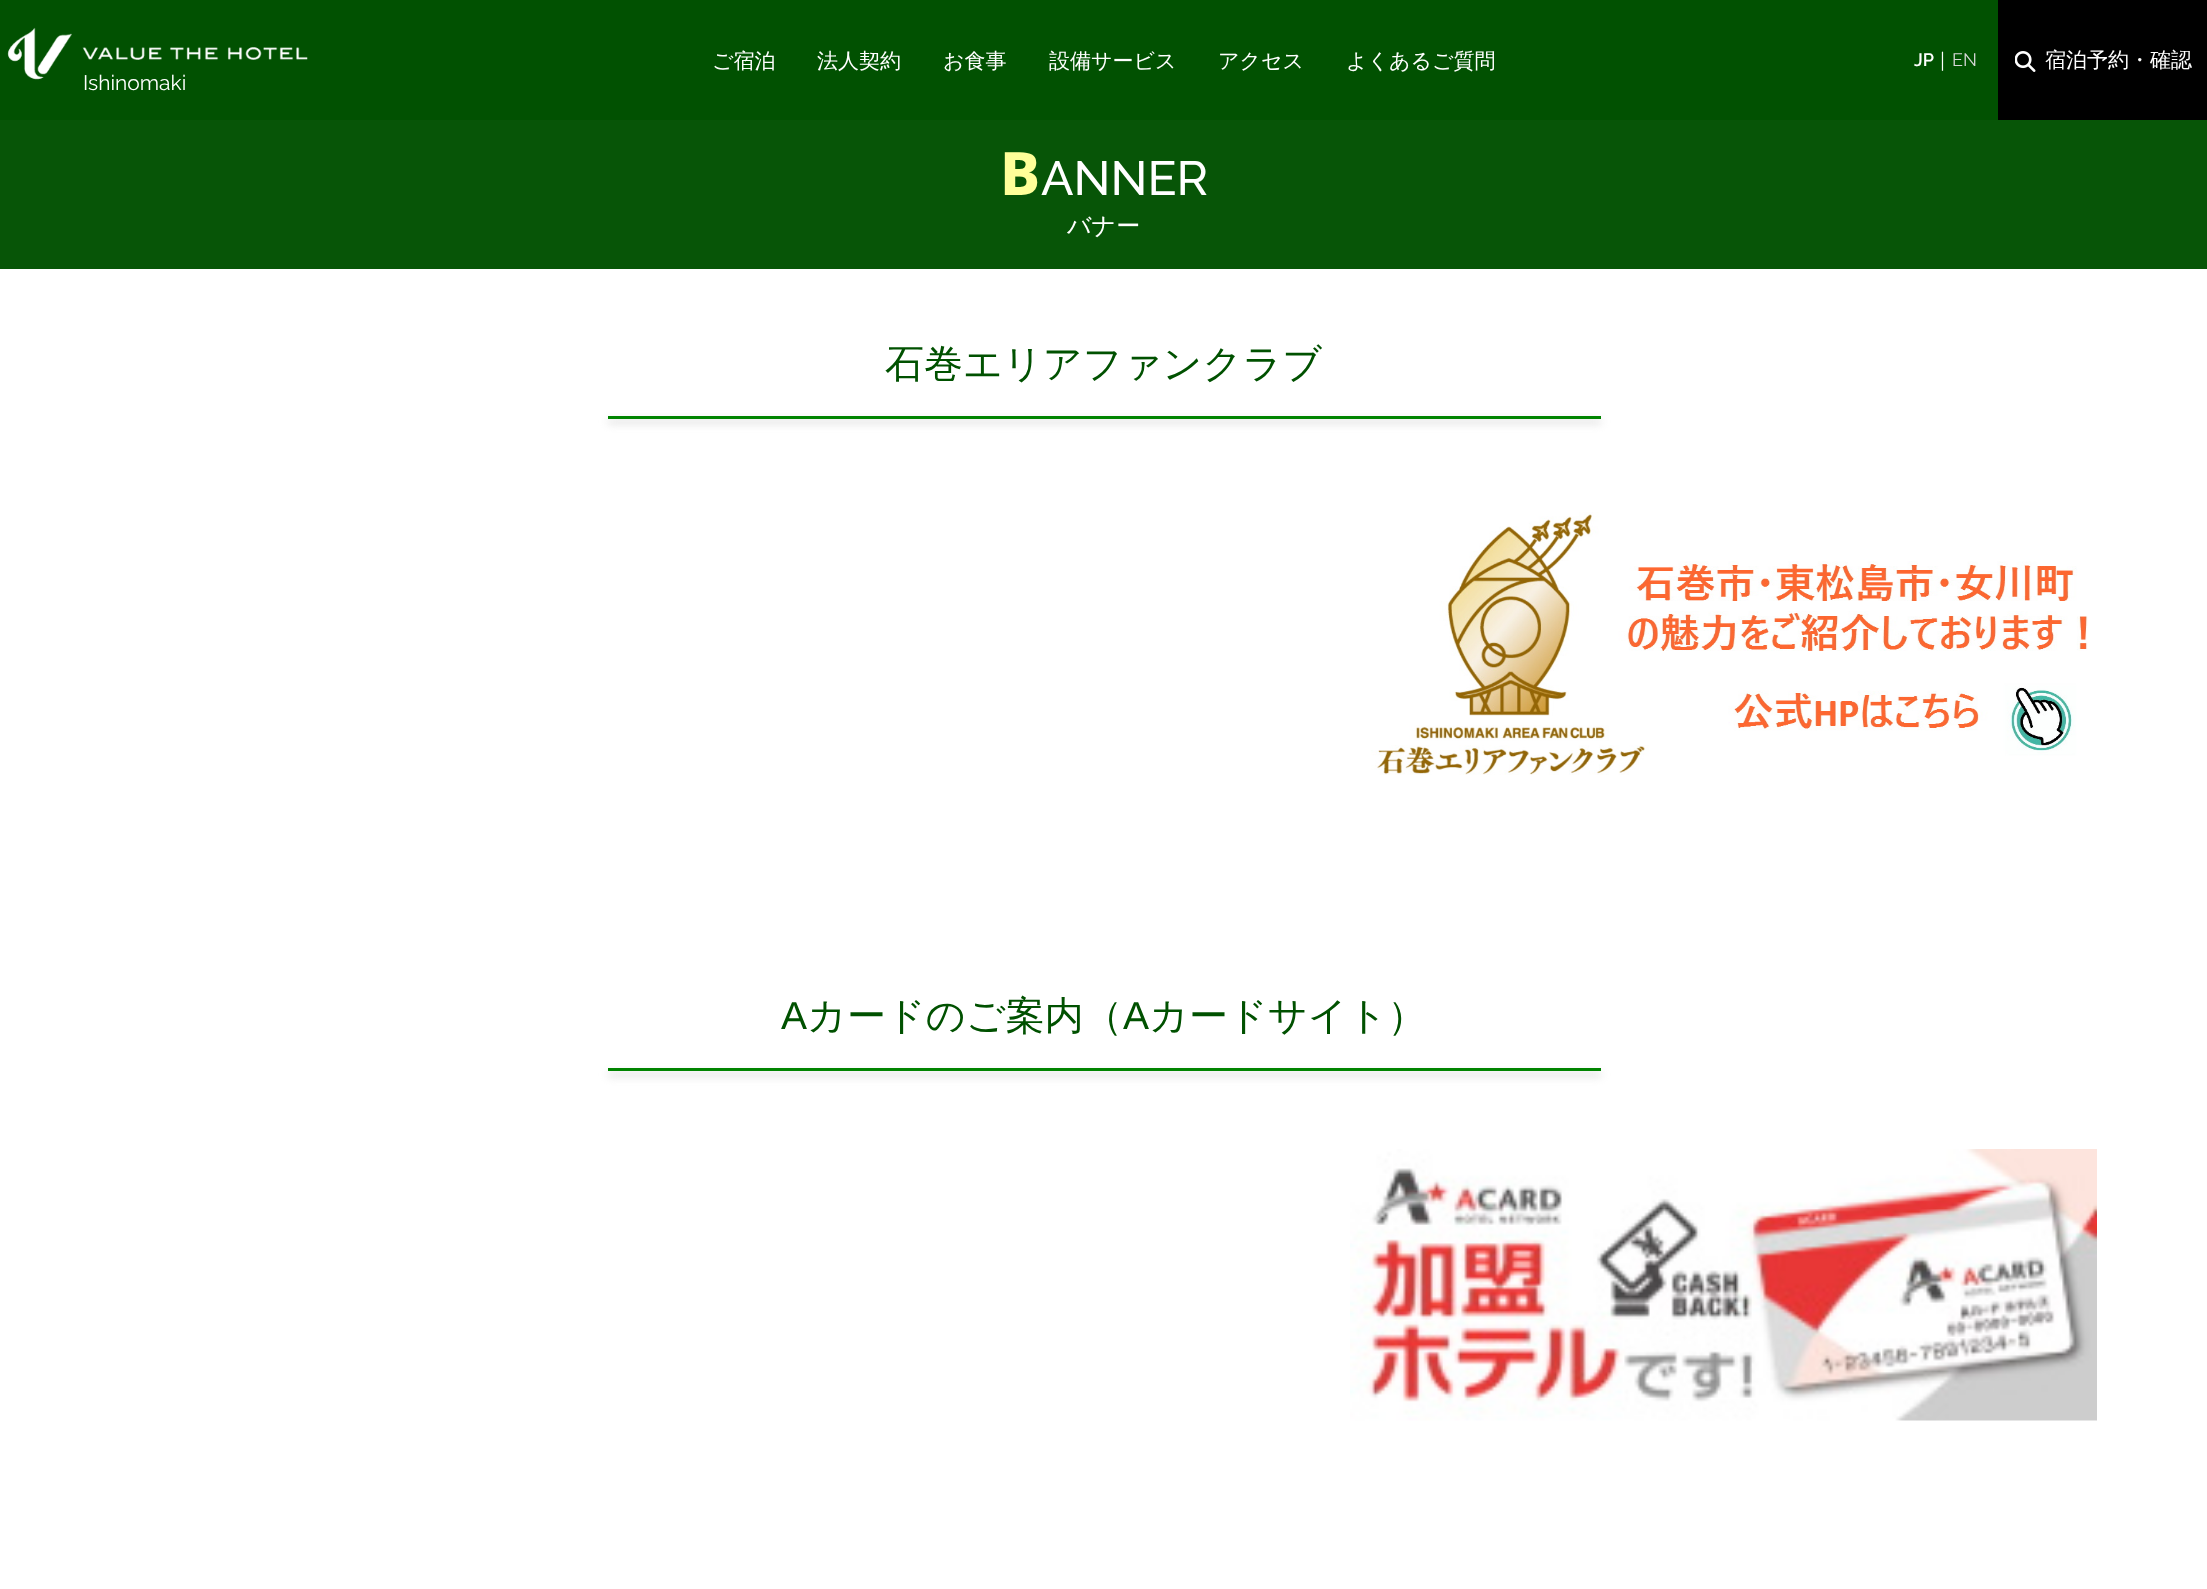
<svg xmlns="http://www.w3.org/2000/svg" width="2207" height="1589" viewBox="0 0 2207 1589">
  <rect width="100%" height="100%" fill="rgb(255,255,255)"/>
  <rect x="0" y="0" width="1998" height="120" fill="rgb(1,81,1)"/>
  <g font-family="WenQuanYi Zen Hei" font-size="21" font-weight="500" fill="rgb(255,255,255)">
    <text x="712" y="68">ご宿泊</text>
    <text x="817" y="68">法人契約</text>
    <text x="943" y="68">お食事</text>
    <text x="1049" y="68">設備サービス</text>
    <text x="1218" y="68">アクセス</text>
    <text x="1346" y="68">よくあるご質問</text>
  </g>
  <text x="1914" y="66" font-family="Raleway" font-size="18" font-weight="600" fill="rgb(255,255,255)">JP</text>
  <text x="1933" y="66" font-family="WenQuanYi Zen Hei" font-size="19" font-weight="500" fill="rgb(255,255,255)">｜</text>
  <text x="1952" y="66" font-family="Raleway" font-size="18" fill="rgb(214,214,214)">EN</text>
  <rect x="1998" y="0" width="209" height="120" fill="rgb(0,0,0)"/>
  <image x="2015" y="51" width="21" height="21" href="pic1.png"/>
  <text x="2045" y="67" font-family="WenQuanYi Zen Hei" font-size="21" font-weight="500" fill="rgb(255,255,255)">宿泊予約・確認</text>
  <text x="83" y="90" font-family="Raleway" font-size="21" fill="rgb(255,255,255)">Ishinomaki</text>
  <image x="7" y="27" width="301" height="53" href="pic2.png"/>
  <rect x="0" y="120" width="2207" height="149" fill="rgb(7,85,7)"/>
  <text x="1000" y="195" font-family="Noto Sans" font-size="60" font-weight="800" fill="rgb(255,255,153)">B</text>
  <text x="1041" y="195" font-family="Raleway" font-size="48" font-weight="500" fill="rgb(255,255,255)">ANNER</text>
  <text x="1067" y="234" font-family="WenQuanYi Zen Hei" font-size="24" font-weight="500" fill="rgb(255,255,255)">バナー</text>
  <text x="885" y="377" font-family="WenQuanYi Zen Hei" font-size="39" font-weight="500" fill="rgb(0,81,0)">石巻エリアファンクラブ</text>
  <rect x="608" y="420" width="993" height="3" fill="rgb(204,204,204)" filter="blur(4px)"/>
  <rect x="608" y="416" width="993" height="3" fill="rgb(0,132,0)"/>
  <image x="1371" y="512" width="717" height="263" href="pic3.png"/>
  <text x="781" y="1029" font-family="Liberation Sans" font-size="39" fill="rgb(0,81,0)">A</text>
  <text x="807" y="1029" font-family="WenQuanYi Zen Hei" font-size="39" font-weight="500" fill="rgb(0,81,0)">カードのご案内（</text>
  <text x="1123" y="1029" font-family="Liberation Sans" font-size="39" fill="rgb(0,81,0)">A</text>
  <text x="1149" y="1029" font-family="WenQuanYi Zen Hei" font-size="39" font-weight="500" fill="rgb(0,81,0)">カードサイト）</text>
  <rect x="608" y="1073" width="993" height="3" fill="rgb(204,204,204)" filter="blur(4px)"/>
  <rect x="608" y="1068" width="993" height="3" fill="rgb(0,132,0)"/>
  <image x="1350" y="1149" width="747" height="272" href="pic4.png"/>
</svg>
